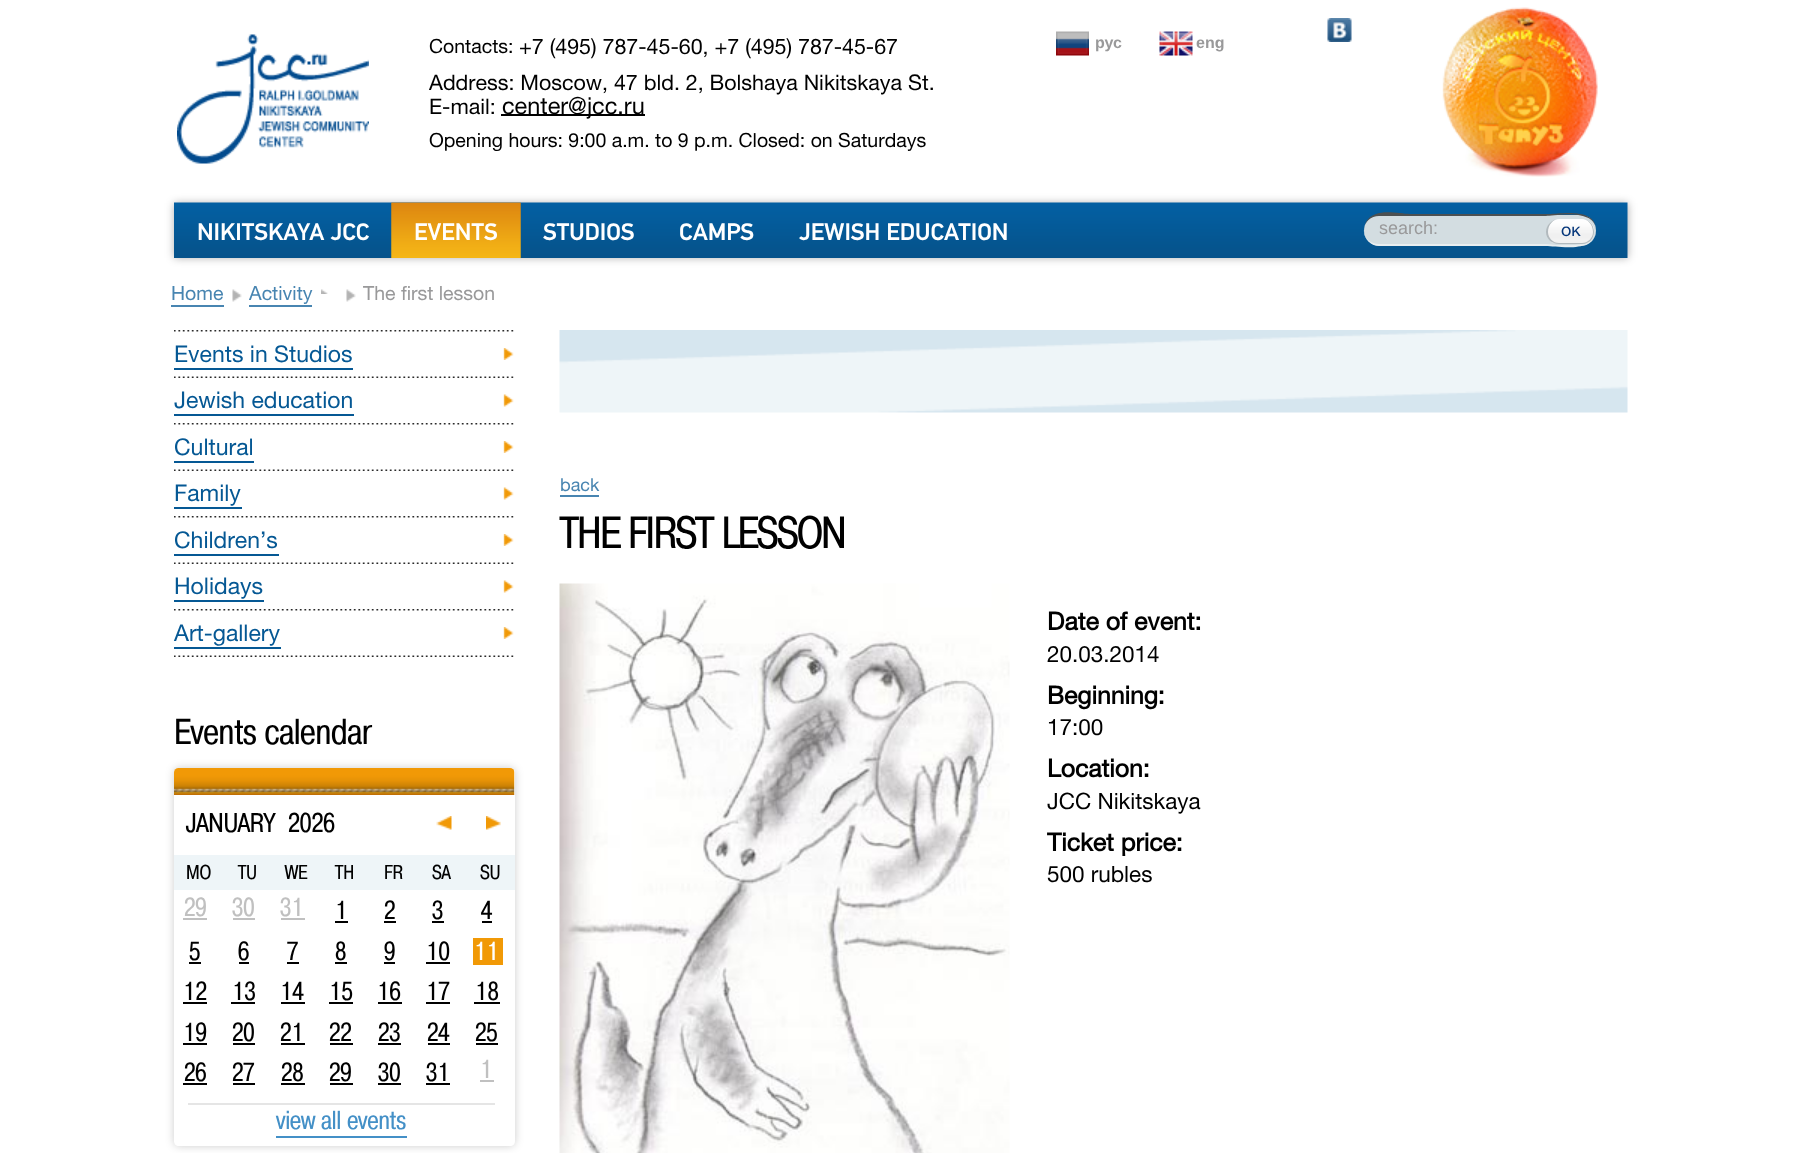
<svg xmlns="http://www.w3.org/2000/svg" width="1799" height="1153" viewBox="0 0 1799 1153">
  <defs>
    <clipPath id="clip1"><path d="M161 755H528V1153H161ZM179 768H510C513 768 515 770 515 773V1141C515 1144 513 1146 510 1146H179C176 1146 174 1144 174 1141V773C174 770 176 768 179 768Z" clip-rule="evenodd"/></clipPath>
  </defs>
  <rect width="100%" height="100%" fill="rgb(255,255,255)"/>
  <image x="1327" y="18" width="25" height="24" href="pic1.png"/>
  <image x="1442" y="7" width="156" height="170" href="pic2.png"/>
  <image x="177" y="34" width="192" height="130" href="pic3.png"/>
  <text x="429" y="53" font-family="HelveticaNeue" font-size="19.5" fill="rgb(0,0,0)">Contacts:</text>
  <g font-family="HelveticaNeue" font-size="21.45" fill="rgb(0,0,0)">
    <text x="519" y="54">+7 (495) 787-45-60, +7 (495) 787-45-67</text>
    <text>
      <tspan x="429" y="90">Address: Moscow, 47 bld. 2, Bolshaya Nikitskaya St.</tspan>
      <tspan x="429" y="114">E-mail:</tspan>
    </text>
  </g>
  <rect x="501" y="114" width="144" height="2" fill="rgb(0,0,0)"/>
  <text x="502" y="114" font-family="HelveticaNeue" font-size="23.5" fill="rgb(0,0,0)">center@jcc.ru</text>
  <text x="429" y="147" font-family="HelveticaNeue" font-size="19.5" fill="rgb(0,0,0)">Opening hours: 9:00 a.m. to 9 p.m. Closed: on Saturdays</text>
  <image x="1056" y="31" width="33" height="25" href="pic4.png"/>
  <text x="1095" y="48" font-family="Liberation Sans" font-size="16" font-weight="bold" fill="rgb(153,153,154)">рус</text>
  <image x="1159" y="31" width="34" height="25" href="pic5.png"/>
  <text x="1196" y="48" font-family="Liberation Sans" font-size="16" font-weight="bold" fill="rgb(153,153,154)">eng</text>
  <rect x="174" y="203" width="1454" height="55" fill="rgba(0,0,0,0.3)" filter="blur(4.5px)"/>
  <image x="174" y="202" width="1454" height="56" href="pic6.png"/>
  <text x="197" y="240" font-family="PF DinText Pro" font-size="24" font-weight="500" fill="rgb(255,255,255)">NIKITSKAYA JCC</text>
  <image x="391" y="202" width="130" height="56" href="pic7.png"/>
  <image x="391" y="202" width="130" height="56" href="pic8.png"/>
  <g font-family="PF DinText Pro" font-size="24" font-weight="500" fill="rgb(255,255,255)">
    <text x="414" y="240">EVENTS</text>
    <text x="543" y="240">STUDIOS</text>
    <text x="679" y="240">CAMPS</text>
    <text x="799" y="240">JEWISH EDUCATION</text>
  </g>
  <rect x="1364" y="215" width="232" height="31" rx="15.5" fill="rgb(211,221,225)"/>
  <path d="M1379 216H1546C1553 216 1596 208 1596 230C1596 207 1560 214 1549 214H1410C1398 214 1375 207 1366 222C1365 225 1364 227 1364 230C1364 222 1371 216 1379 216Z" fill="rgb(76,80,81)"/>
  <path d="M1379 246H1546C1557 246 1596 254 1596 230C1596 237 1592 242 1585 244L1574 245H1556L1547 244H1379C1371 244 1364 239 1364 230C1363 238 1371 246 1379 246Z" fill="rgb(233,238,240)"/>
  <text x="1379" y="234" font-family="Liberation Sans" font-size="18" fill="rgb(153,153,154)">search:</text>
  <image x="1546" y="219" width="49" height="24" href="pic9.png"/>
  <path d="M1559 219H1582C1589 219 1594 225 1594 232C1594 239 1589 244 1582 244H1559C1552 244 1546 239 1546 232C1546 225 1552 219 1559 219ZM1559 219H1582C1588 219 1593 225 1593 232C1593 238 1588 243 1582 243H1559C1553 243 1548 238 1548 232C1548 225 1553 219 1559 219Z" fill="rgb(178,186,190)" fill-rule="evenodd"/>
  <text x="1561" y="236" font-family="HelveticaNeue" font-size="18" fill="rgb(6,55,123)">ок</text>
  <text x="171" y="300" font-family="HelveticaNeue" font-size="19.5" fill="rgb(72,133,177)">Home</text>
  <rect x="171" y="305" width="53" height="2" fill="rgb(72,133,177)"/>
  <image x="232" y="289" width="10" height="13" href="pic10.png"/>
  <text x="249" y="300" font-family="HelveticaNeue" font-size="19.5" fill="rgb(72,133,177)">Activity</text>
  <rect x="249" y="305" width="63" height="2" fill="rgb(72,133,177)"/>
  <image x="321" y="289" width="7" height="5" href="pic11.png"/>
  <image x="346" y="289" width="10" height="13" href="pic10.png"/>
  <text x="363" y="300" font-family="HelveticaNeue" font-size="19.5" fill="rgb(153,153,154)">The first lesson</text>
  <image x="174" y="330" width="340" height="2" href="pic12.png"/>
  <image x="174" y="376" width="340" height="2" href="pic13.png"/>
  <image x="503" y="348" width="11" height="12" href="pic14.png"/>
  <text x="174" y="362" font-family="HelveticaNeue" font-size="23" fill="rgb(5,88,148)">Events in Studios</text>
  <rect x="174" y="368" width="179" height="2" fill="rgb(5,88,148)"/>
  <image x="174" y="423" width="340" height="2" href="pic12.png"/>
  <image x="503" y="394" width="11" height="13" href="pic15.png"/>
  <text x="174" y="408" font-family="HelveticaNeue" font-size="23" fill="rgb(5,88,148)">Jewish education</text>
  <rect x="174" y="414" width="180" height="2" fill="rgb(5,88,148)"/>
  <image x="174" y="469" width="340" height="2" href="pic13.png"/>
  <image x="503" y="441" width="11" height="12" href="pic14.png"/>
  <text x="174" y="455" font-family="HelveticaNeue" font-size="23" fill="rgb(5,88,148)">Cultural</text>
  <rect x="174" y="461" width="80" height="2" fill="rgb(5,88,148)"/>
  <image x="174" y="516" width="340" height="2" href="pic12.png"/>
  <image x="503" y="487" width="11" height="13" href="pic15.png"/>
  <text x="174" y="501" font-family="HelveticaNeue" font-size="23" fill="rgb(5,88,148)">Family</text>
  <rect x="174" y="507" width="68" height="2" fill="rgb(5,88,148)"/>
  <image x="174" y="562" width="340" height="2" href="pic13.png"/>
  <image x="503" y="534" width="11" height="12" href="pic14.png"/>
  <text x="174" y="548" font-family="HelveticaNeue" font-size="23" fill="rgb(5,88,148)">Children’s</text>
  <rect x="174" y="554" width="105" height="2" fill="rgb(5,88,148)"/>
  <image x="174" y="609" width="340" height="2" href="pic12.png"/>
  <image x="503" y="580" width="11" height="13" href="pic15.png"/>
  <text x="174" y="594" font-family="HelveticaNeue" font-size="23" fill="rgb(5,88,148)">Holidays</text>
  <rect x="174" y="600" width="90" height="2" fill="rgb(5,88,148)"/>
  <image x="174" y="655" width="340" height="2" href="pic13.png"/>
  <image x="503" y="627" width="11" height="12" href="pic14.png"/>
  <text x="174" y="641" font-family="HelveticaNeue" font-size="23" fill="rgb(5,88,148)">Art-gallery</text>
  <rect x="174" y="647" width="107" height="2" fill="rgb(5,88,148)"/>
  <text x="174" y="744" font-family="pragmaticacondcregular" font-size="36" fill="rgb(0,0,0)">Events calendar</text>
  <g clip-path="url(#clip1)">
    <rect x="174" y="768" width="341" height="378" rx="5" fill="rgba(0,0,0,0.2)" filter="blur(4px)"/>
  </g>
  <image x="174" y="768" width="341" height="27" href="pic16.png"/>
  <g font-family="pragmaticacondcregular" font-size="27" fill="rgb(0,0,0)">
    <text x="186" y="832">JANUARY</text>
    <text x="288" y="832">2026</text>
  </g>
  <image x="436" y="816" width="16" height="14" href="pic17.png"/>
  <image x="486" y="816" width="15" height="14" href="pic18.png"/>
  <rect x="174" y="855" width="341" height="35" fill="rgb(238,245,248)"/>
  <g font-family="pragmaticacondcregular" font-size="20" fill="rgb(0,0,0)">
    <text x="186" y="879">MO</text>
    <text x="238" y="879">TU</text>
    <text x="285" y="879">WE</text>
    <text x="335" y="879">TH</text>
    <text x="384" y="879">FR</text>
    <text x="432" y="879">SA</text>
    <text x="480" y="879">SU</text>
  </g>
  <text x="184" y="916" font-family="pragmaticacondcregular" font-size="26" fill="rgb(192,192,192)">29</text>
  <rect x="183" y="918" width="24" height="2" fill="rgb(192,192,192)"/>
  <text x="232" y="916" font-family="pragmaticacondcregular" font-size="26" fill="rgb(192,192,192)">30</text>
  <rect x="233" y="918" width="22" height="2" fill="rgb(192,192,192)"/>
  <text x="280" y="916" font-family="pragmaticacondcregular" font-size="26" fill="rgb(192,192,192)">31</text>
  <rect x="281" y="918" width="24" height="2" fill="rgb(192,192,192)"/>
  <text x="335" y="919" font-family="pragmaticacondcregular" font-size="26" fill="rgb(0,0,0)">1</text>
  <rect x="335" y="921" width="13" height="2" fill="rgb(0,0,0)"/>
  <text x="384" y="919" font-family="pragmaticacondcregular" font-size="26" fill="rgb(0,0,0)">2</text>
  <rect x="384" y="921" width="12" height="2" fill="rgb(0,0,0)"/>
  <text x="432" y="919" font-family="pragmaticacondcregular" font-size="26" fill="rgb(0,0,0)">3</text>
  <rect x="432" y="921" width="12" height="2" fill="rgb(0,0,0)"/>
  <text x="481" y="919" font-family="pragmaticacondcregular" font-size="26" fill="rgb(0,0,0)">4</text>
  <rect x="482" y="921" width="10" height="2" fill="rgb(0,0,0)"/>
  <text x="189" y="960" font-family="pragmaticacondcregular" font-size="26" fill="rgb(0,0,0)">5</text>
  <rect x="189" y="962" width="12" height="2" fill="rgb(0,0,0)"/>
  <text x="238" y="960" font-family="pragmaticacondcregular" font-size="26" fill="rgb(0,0,0)">6</text>
  <rect x="239" y="962" width="10" height="2" fill="rgb(0,0,0)"/>
  <text x="287" y="960" font-family="pragmaticacondcregular" font-size="26" fill="rgb(0,0,0)">7</text>
  <rect x="287" y="962" width="12" height="2" fill="rgb(0,0,0)"/>
  <text x="335" y="960" font-family="pragmaticacondcregular" font-size="26" fill="rgb(0,0,0)">8</text>
  <rect x="335" y="962" width="12" height="2" fill="rgb(0,0,0)"/>
  <text x="384" y="960" font-family="pragmaticacondcregular" font-size="26" fill="rgb(0,0,0)">9</text>
  <rect x="384" y="962" width="11" height="2" fill="rgb(0,0,0)"/>
  <text x="426" y="960" font-family="pragmaticacondcregular" font-size="26" fill="rgb(0,0,0)">10</text>
  <rect x="426" y="962" width="24" height="2" fill="rgb(0,0,0)"/>
  <rect x="473" y="938" width="30" height="27" fill="rgb(241,153,6)"/>
  <text x="474" y="960" font-family="pragmaticacondcregular" font-size="26" fill="rgb(255,255,255)">11</text>
  <text x="183" y="1000" font-family="pragmaticacondcregular" font-size="26" fill="rgb(0,0,0)">12</text>
  <rect x="183" y="1002" width="24" height="2" fill="rgb(0,0,0)"/>
  <text x="232" y="1000" font-family="pragmaticacondcregular" font-size="26" fill="rgb(0,0,0)">13</text>
  <rect x="231" y="1002" width="24" height="2" fill="rgb(0,0,0)"/>
  <text x="280" y="1000" font-family="pragmaticacondcregular" font-size="26" fill="rgb(0,0,0)">14</text>
  <rect x="281" y="1002" width="24" height="2" fill="rgb(0,0,0)"/>
  <text x="329" y="1000" font-family="pragmaticacondcregular" font-size="26" fill="rgb(0,0,0)">15</text>
  <rect x="329" y="1002" width="24" height="2" fill="rgb(0,0,0)"/>
  <text x="377" y="1000" font-family="pragmaticacondcregular" font-size="26" fill="rgb(0,0,0)">16</text>
  <rect x="378" y="1002" width="24" height="2" fill="rgb(0,0,0)"/>
  <text x="426" y="1000" font-family="pragmaticacondcregular" font-size="26" fill="rgb(0,0,0)">17</text>
  <rect x="426" y="1002" width="24" height="2" fill="rgb(0,0,0)"/>
  <text x="475" y="1000" font-family="pragmaticacondcregular" font-size="26" fill="rgb(0,0,0)">18</text>
  <rect x="474" y="1002" width="26" height="2" fill="rgb(0,0,0)"/>
  <text x="183" y="1041" font-family="pragmaticacondcregular" font-size="26" fill="rgb(0,0,0)">19</text>
  <rect x="183" y="1043" width="24" height="2" fill="rgb(0,0,0)"/>
  <text x="232" y="1041" font-family="pragmaticacondcregular" font-size="26" fill="rgb(0,0,0)">20</text>
  <rect x="233" y="1043" width="22" height="2" fill="rgb(0,0,0)"/>
  <text x="280" y="1041" font-family="pragmaticacondcregular" font-size="26" fill="rgb(0,0,0)">21</text>
  <rect x="281" y="1043" width="24" height="2" fill="rgb(0,0,0)"/>
  <text x="329" y="1041" font-family="pragmaticacondcregular" font-size="26" fill="rgb(0,0,0)">22</text>
  <rect x="330" y="1043" width="23" height="2" fill="rgb(0,0,0)"/>
  <text x="378" y="1041" font-family="pragmaticacondcregular" font-size="26" fill="rgb(0,0,0)">23</text>
  <rect x="378" y="1043" width="23" height="2" fill="rgb(0,0,0)"/>
  <text x="427" y="1041" font-family="pragmaticacondcregular" font-size="26" fill="rgb(0,0,0)">24</text>
  <rect x="428" y="1043" width="22" height="2" fill="rgb(0,0,0)"/>
  <text x="475" y="1041" font-family="pragmaticacondcregular" font-size="26" fill="rgb(0,0,0)">25</text>
  <rect x="476" y="1043" width="22" height="2" fill="rgb(0,0,0)"/>
  <text x="184" y="1081" font-family="pragmaticacondcregular" font-size="26" fill="rgb(0,0,0)">26</text>
  <rect x="183" y="1083" width="24" height="2" fill="rgb(0,0,0)"/>
  <text x="232" y="1081" font-family="pragmaticacondcregular" font-size="26" fill="rgb(0,0,0)">27</text>
  <rect x="233" y="1083" width="22" height="2" fill="rgb(0,0,0)"/>
  <text x="281" y="1081" font-family="pragmaticacondcregular" font-size="26" fill="rgb(0,0,0)">28</text>
  <rect x="281" y="1083" width="24" height="2" fill="rgb(0,0,0)"/>
  <text x="329" y="1081" font-family="pragmaticacondcregular" font-size="26" fill="rgb(0,0,0)">29</text>
  <rect x="330" y="1083" width="23" height="2" fill="rgb(0,0,0)"/>
  <text x="378" y="1081" font-family="pragmaticacondcregular" font-size="26" fill="rgb(0,0,0)">30</text>
  <rect x="378" y="1083" width="23" height="2" fill="rgb(0,0,0)"/>
  <text x="426" y="1081" font-family="pragmaticacondcregular" font-size="26" fill="rgb(0,0,0)">31</text>
  <rect x="426" y="1083" width="24" height="2" fill="rgb(0,0,0)"/>
  <text x="480" y="1078" font-family="pragmaticacondcregular" font-size="26" fill="rgb(192,192,192)">1</text>
  <rect x="480" y="1080" width="14" height="2" fill="rgb(192,192,192)"/>
  <rect x="188" y="1103" width="307" height="2" fill="rgb(229,229,229)"/>
  <text x="276" y="1129" font-family="pragmaticacondcregular" font-size="26" fill="rgb(68,144,199)">view all events</text>
  <rect x="276" y="1136" width="131" height="2" fill="rgb(68,144,199)"/>
  <image x="559" y="330" width="1069" height="83" href="pic19.png"/>
  <rect x="560" y="495" width="39" height="2" fill="rgb(72,133,177)"/>
  <text x="560" y="491" font-family="HelveticaNeue" font-size="18" fill="rgb(72,133,177)">back</text>
  <text x="560" y="548" font-family="pragmaticacondcregular" font-size="45" letter-spacing="-1.5" fill="rgb(0,0,0)">THE FIRST LESSON</text>
  <image x="559" y="583" width="451" height="570" href="pic20.png"/>
  <text x="1047" y="630" font-family="HelveticaNeue" font-size="24.75" font-weight="bold" fill="rgb(0,0,0)">Date of event:</text>
  <text x="1047" y="662" font-family="HelveticaNeue" font-size="22.5" fill="rgb(0,0,0)">20.03.2014</text>
  <text x="1047" y="704" font-family="HelveticaNeue" font-size="24.75" font-weight="bold" fill="rgb(0,0,0)">Beginning:</text>
  <text x="1047" y="735" font-family="HelveticaNeue" font-size="22.5" fill="rgb(0,0,0)">17:00</text>
  <text x="1047" y="777" font-family="HelveticaNeue" font-size="24.75" font-weight="bold" fill="rgb(0,0,0)">Location:</text>
  <text x="1047" y="809" font-family="HelveticaNeue" font-size="22.5" fill="rgb(0,0,0)">JCC Nikitskaya</text>
  <text x="1047" y="851" font-family="HelveticaNeue" font-size="24.75" font-weight="bold" fill="rgb(0,0,0)">Ticket price:</text>
  <text x="1047" y="882" font-family="HelveticaNeue" font-size="22.5" fill="rgb(0,0,0)">500 rubles</text>
</svg>
